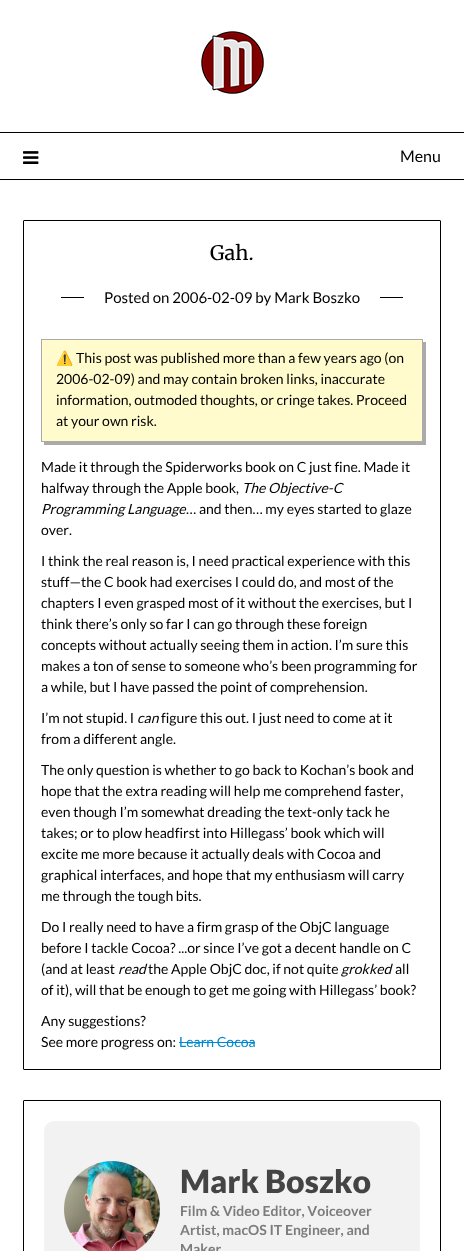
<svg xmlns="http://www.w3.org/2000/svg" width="464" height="1251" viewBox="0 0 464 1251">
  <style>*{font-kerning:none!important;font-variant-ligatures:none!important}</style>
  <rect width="100%" height="100%" fill="rgb(255,255,255)"/>
  <image x="201" y="31" width="63" height="63" href="pic1.png"/>
  <rect x="0" y="132" width="464" height="1" fill="rgb(0,0,0)"/>
  <rect x="0" y="179" width="464" height="1" fill="rgb(0,0,0)"/>
  <image x="23" y="151" width="16" height="13" href="pic2.png"/>
  <text x="400" y="162" font-family="Lato" font-size="16" fill="rgb(0,0,0)">Menu</text>
  <rect x="23.5" y="220.5" width="417" height="849" rx="0.5" fill="none" stroke="rgb(0,0,0)"/>
  <text x="210" y="260" font-family="Merriweather" font-size="20" fill="rgb(0,0,0)">Gah.</text>
  <rect x="61" y="297" width="342" height="1" fill="rgb(0,0,0)"/>
  <rect x="84" y="297" width="296" height="1" fill="rgb(255,255,255)"/>
  <text x="104" y="303" font-family="Lato" font-size="15" fill="rgb(0,0,0)">Posted on 2006-02-09 by Mark Boszko</text>
  <path d="M44 442V445H426V342H423V442Z" fill="rgb(170,170,170)"/>
  <rect x="41.5" y="339.5" width="381" height="102" fill="rgb(255,251,204)" stroke="rgb(170,170,170)"/>
  <text x="56" y="363" font-family="Noto Color Emoji" font-size="14" fill="rgb(0,0,0)">⚠️</text>
  <g font-family="Lato" font-size="14" fill="rgb(0,0,0)">
    <text x="76" y="363">This post was published more than a few years ago (on</text>
    <text>
      <tspan x="56" y="384">2006-02-09) and may contain broken links, inaccurate</tspan>
      <tspan x="56" y="405">information, outmoded thoughts, or cringe takes. Proceed</tspan>
      <tspan x="56" y="426">at your own risk.</tspan>
    </text>
    <text>
      <tspan x="41" y="472">Made it through the Spiderworks book on C just fine. Made it</tspan>
      <tspan x="41" y="493">halfway through the Apple book,</tspan>
    </text>
  </g>
  <g font-family="Lato" font-size="14" font-style="italic" fill="rgb(0,0,0)">
    <text x="242" y="493">The Objective-C</text>
    <text x="41" y="514">Programming Language</text>
  </g>
  <g font-family="Lato" font-size="14" fill="rgb(0,0,0)">
    <text x="186" y="514">… and then… my eyes started to glaze</text>
    <text x="41" y="535">over.</text>
    <text>
      <tspan x="41" y="566">I think the real reason is, I need practical experience with this</tspan>
      <tspan x="41" y="587">stuff—the C book had exercises I could do, and most of the</tspan>
      <tspan x="41" y="608">chapters I even grasped most of it without the exercises, but I</tspan>
      <tspan x="41" y="629">think there’s only so far I can go through these foreign</tspan>
      <tspan x="41" y="650">concepts without actually seeing them in action. I’m sure this</tspan>
      <tspan x="41" y="671">makes a ton of sense to someone who’s been programming for</tspan>
      <tspan x="41" y="692">a while, but I have passed the point of comprehension.</tspan>
    </text>
    <text x="41" y="723">I’m not stupid. I</text>
  </g>
  <text x="137" y="723" font-family="Lato" font-size="14" font-style="italic" fill="rgb(0,0,0)">can</text>
  <g font-family="Lato" font-size="14" fill="rgb(0,0,0)">
    <text x="161" y="723">figure this out. I just need to come at it</text>
    <text x="41" y="744">from a different angle.</text>
    <text>
      <tspan x="41" y="775">The only question is whether to go back to Kochan’s book and</tspan>
      <tspan x="41" y="796">hope that the extra reading will help me comprehend faster,</tspan>
      <tspan x="41" y="817">even though I’m somewhat dreading the text-only tack he</tspan>
      <tspan x="41" y="838">takes; or to plow headfirst into Hillegass’ book which will</tspan>
      <tspan x="41" y="859">excite me more because it actually deals with Cocoa and</tspan>
      <tspan x="41" y="880">graphical interfaces, and hope that my enthusiasm will carry</tspan>
      <tspan x="41" y="901">me through the tough bits.</tspan>
    </text>
    <text>
      <tspan x="41" y="932">Do I really need to have a firm grasp of the ObjC language</tspan>
      <tspan x="41" y="953">before I tackle Cocoa? ...or since I’ve got a decent handle on C</tspan>
      <tspan x="41" y="974">(and at least</tspan>
    </text>
  </g>
  <text x="118" y="974" font-family="Lato" font-size="14" font-style="italic" fill="rgb(0,0,0)">read</text>
  <text x="148" y="974" font-family="Lato" font-size="14" fill="rgb(0,0,0)">the Apple ObjC doc, if not quite</text>
  <text x="341" y="974" font-family="Lato" font-size="14" font-style="italic" fill="rgb(0,0,0)">grokked</text>
  <g font-family="Lato" font-size="14" fill="rgb(0,0,0)">
    <text x="395" y="974">all</text>
    <text x="41" y="995">of it), will that be enough to get me going with Hillegass’ book?</text>
    <text>
      <tspan x="41" y="1026">Any suggestions?</tspan>
      <tspan x="41" y="1047">See more progress on:</tspan>
    </text>
  </g>
  <text x="179" y="1047" font-family="Lato" font-size="14" fill="rgb(0,136,204)">Learn Cocoa</text>
  <rect x="179" y="1042" width="76" height="1" fill="rgb(0,136,204)"/>
  <rect x="23.5" y="1100.5" width="417" height="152" rx="0.5" fill="none" stroke="rgb(0,0,0)"/>
  <rect x="44" y="1121" width="376" height="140" rx="10" fill="rgb(242,242,242)"/>
  <image x="64" y="1161" width="96" height="90" href="pic3.png"/>
  <text x="180" y="1193" font-family="Lato" font-size="32" font-weight="900" fill="rgb(68,68,68)">Mark Boszko</text>
  <g font-family="Lato" font-size="14" font-weight="bold" fill="rgb(124,124,124)">
    <text>
      <tspan x="180" y="1216">Film &amp; Video Editor, Voiceover</tspan>
      <tspan x="180" y="1235">Artist, macOS IT Engineer, and</tspan>
      <tspan x="180" y="1254">Maker</tspan>
    </text>
  </g>
</svg>
